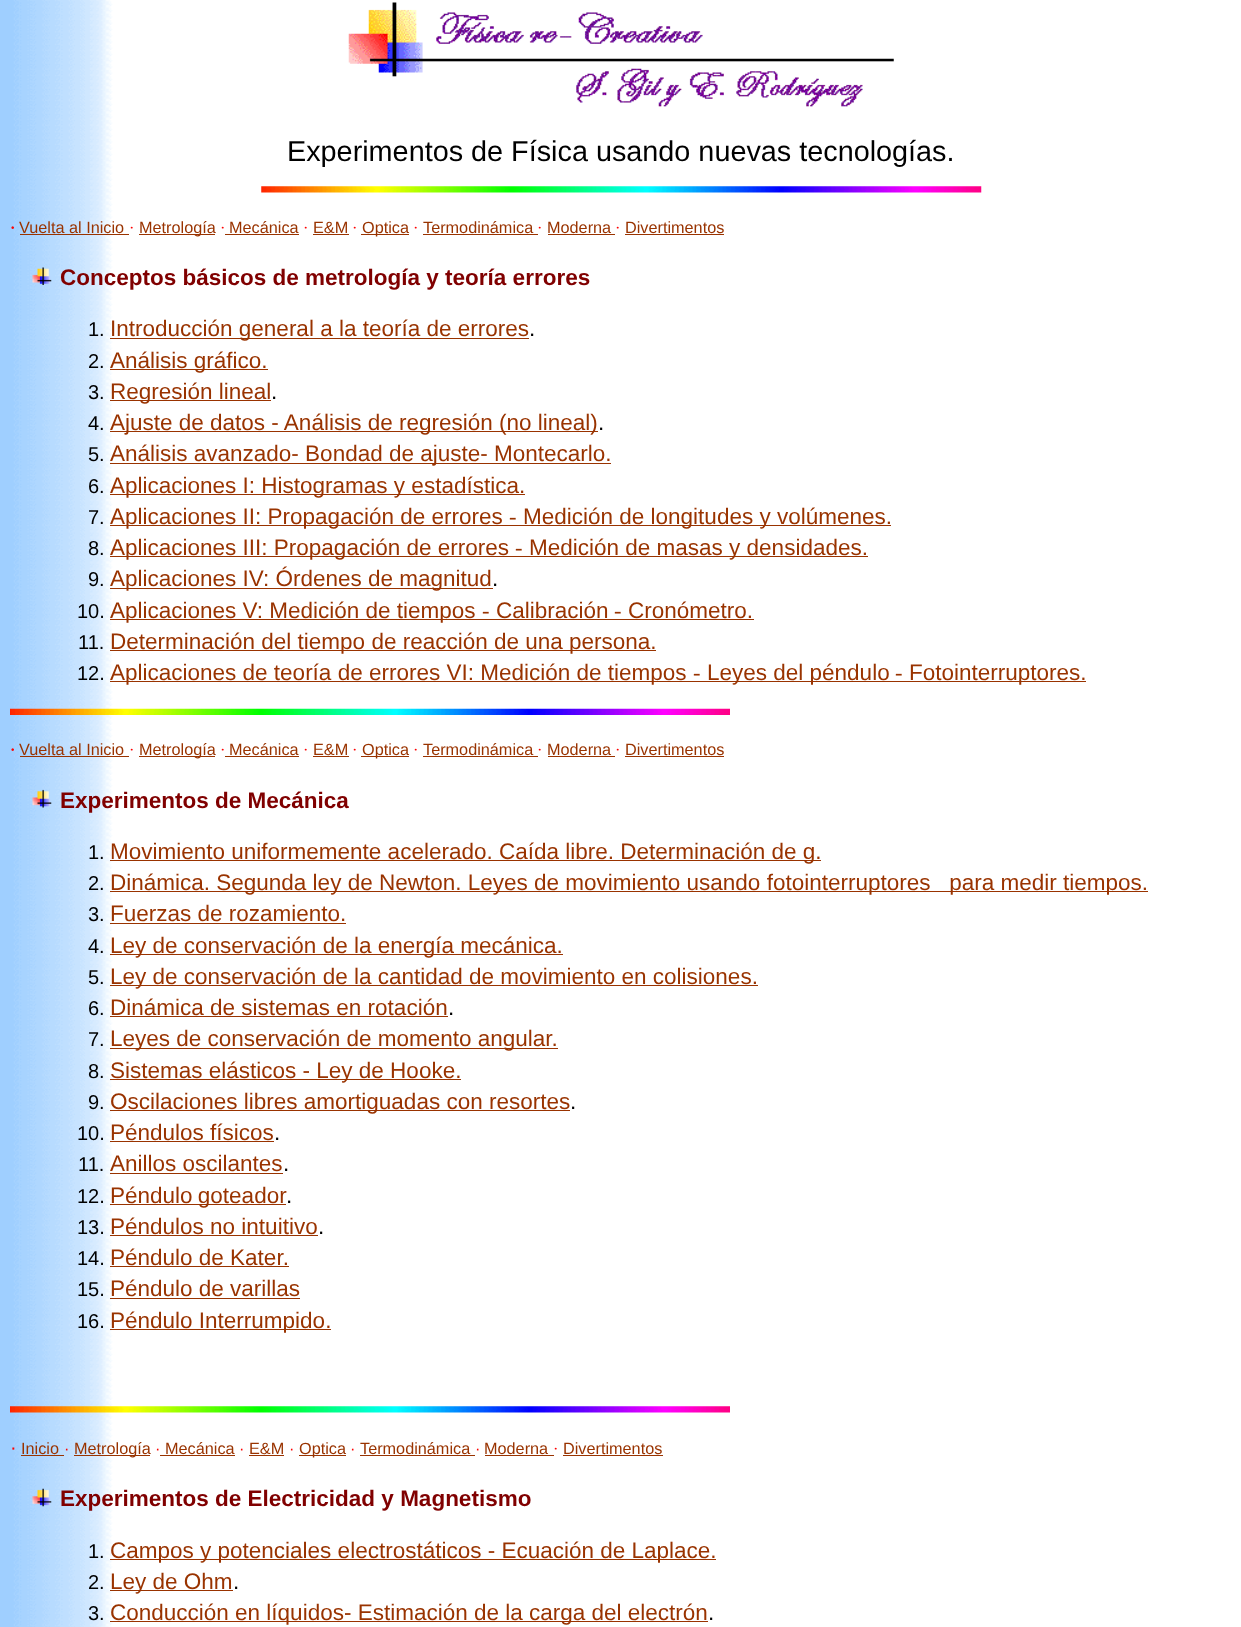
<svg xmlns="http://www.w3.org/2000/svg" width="1241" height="1627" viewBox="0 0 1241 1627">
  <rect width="100%" height="100%" fill="rgb(255,255,255)"/>
  <image x="0" y="0" width="1241" height="1627" href="pic1.png"/>
  <image x="348" y="2" width="546" height="105" href="pic2.png"/>
  <text x="287" y="161" font-family="Liberation Sans" font-size="28.8" fill="rgb(0,0,0)">Experimentos de Física usando nuevas tecnologías.</text>
  <image x="261" y="186" width="721" height="7" href="pic3.png"/>
  <text x="10" y="233" font-family="Liberation Serif" font-size="16.25" font-weight="bold" fill="rgb(255,0,0)">·</text>
  <text x="19" y="233" font-family="Liberation Sans" font-size="16.25" fill="rgb(153,51,0)">Vuelta al Inicio</text>
  <rect x="20" y="234" width="109" height="1" fill="rgb(153,51,0)"/>
  <text x="129" y="233" font-family="Liberation Serif" font-size="16.25" fill="rgb(255,0,0)">·</text>
  <rect x="139" y="234" width="76" height="1" fill="rgb(153,51,0)"/>
  <text x="139" y="233" font-family="Liberation Sans" font-size="16.25" fill="rgb(153,51,0)">Metrología</text>
  <text x="220" y="233" font-family="Liberation Serif" font-size="16.25" fill="rgb(255,0,0)">·</text>
  <text x="229" y="233" font-family="Liberation Sans" font-size="16.25" fill="rgb(153,51,0)">Mecánica</text>
  <rect x="225" y="234" width="74" height="1" fill="rgb(153,51,0)"/>
  <text x="303" y="233" font-family="Liberation Serif" font-size="16.25" fill="rgb(255,0,0)">·</text>
  <text x="313" y="233" font-family="Liberation Sans" font-size="16.25" fill="rgb(153,51,0)">E&amp;M</text>
  <rect x="313" y="234" width="36" height="1" fill="rgb(153,51,0)"/>
  <text x="352" y="233" font-family="Liberation Serif" font-size="16.25" fill="rgb(255,0,0)">·</text>
  <rect x="361" y="234" width="48" height="1" fill="rgb(153,51,0)"/>
  <text x="362" y="233" font-family="Liberation Sans" font-size="16.25" fill="rgb(153,51,0)">Optica</text>
  <text x="413" y="233" font-family="Liberation Serif" font-size="16.25" fill="rgb(255,0,0)">·</text>
  <text x="423" y="233" font-family="Liberation Sans" font-size="16.25" fill="rgb(153,51,0)">Termodinámica</text>
  <rect x="423" y="234" width="115" height="1" fill="rgb(153,51,0)"/>
  <text x="537" y="233" font-family="Liberation Serif" font-size="16.25" fill="rgb(255,0,0)">·</text>
  <text x="547" y="233" font-family="Liberation Sans" font-size="16.25" fill="rgb(153,51,0)">Moderna</text>
  <rect x="548" y="234" width="67" height="1" fill="rgb(153,51,0)"/>
  <text x="615" y="233" font-family="Liberation Serif" font-size="16.25" fill="rgb(255,0,0)">·</text>
  <text x="625" y="233" font-family="Liberation Sans" font-size="16.25" fill="rgb(153,51,0)">Divertimentos</text>
  <rect x="625" y="234" width="99" height="1" fill="rgb(153,51,0)"/>
  <image x="32" y="267" width="20" height="18" href="pic4.png"/>
  <text x="60" y="285" font-family="Liberation Sans" font-size="22.5" font-weight="bold" fill="rgb(128,0,0)">Conceptos básicos de metrología y teoría errores</text>
  <text x="88" y="336" font-family="Liberation Sans" font-size="20" fill="rgb(0,0,0)">1.</text>
  <rect x="110" y="338" width="419" height="1" fill="rgb(153,51,0)"/>
  <text x="110" y="336" font-family="Liberation Sans" font-size="22.5" fill="rgb(153,51,0)">Introducción general a la teoría de errores</text>
  <text x="529" y="336" font-family="Liberation Sans" font-size="22.5" fill="rgb(0,0,0)">.</text>
  <text x="88" y="368" font-family="Liberation Sans" font-size="20" fill="rgb(0,0,0)">2.</text>
  <rect x="110" y="369" width="158" height="1" fill="rgb(153,51,0)"/>
  <text x="110" y="368" font-family="Liberation Sans" font-size="22.5" fill="rgb(153,51,0)">Análisis gráfico.</text>
  <text x="88" y="399" font-family="Liberation Sans" font-size="20" fill="rgb(0,0,0)">3.</text>
  <rect x="110" y="400" width="161" height="1" fill="rgb(153,51,0)"/>
  <text x="110" y="399" font-family="Liberation Sans" font-size="22.5" fill="rgb(153,51,0)">Regresión lineal</text>
  <text x="271" y="399" font-family="Liberation Sans" font-size="22.5" fill="rgb(0,0,0)">.</text>
  <text x="88" y="430" font-family="Liberation Sans" font-size="20" fill="rgb(0,0,0)">4.</text>
  <rect x="110" y="431" width="488" height="1" fill="rgb(153,51,0)"/>
  <text x="110" y="430" font-family="Liberation Sans" font-size="22.5" fill="rgb(153,51,0)">Ajuste de datos - Análisis de regresión (no lineal)</text>
  <text x="598" y="430" font-family="Liberation Sans" font-size="22.5" fill="rgb(0,0,0)">.</text>
  <text x="88" y="461" font-family="Liberation Sans" font-size="20" fill="rgb(0,0,0)">5.</text>
  <rect x="110" y="463" width="501" height="1" fill="rgb(153,51,0)"/>
  <text x="110" y="461" font-family="Liberation Sans" font-size="22.5" fill="rgb(153,51,0)">Análisis avanzado- Bondad de ajuste- Montecarlo.</text>
  <text x="88" y="493" font-family="Liberation Sans" font-size="20" fill="rgb(0,0,0)">6.</text>
  <rect x="110" y="494" width="415" height="1" fill="rgb(153,51,0)"/>
  <text x="110" y="493" font-family="Liberation Sans" font-size="22.5" fill="rgb(153,51,0)">Aplicaciones I: Histogramas y estadística.</text>
  <text x="88" y="524" font-family="Liberation Sans" font-size="20" fill="rgb(0,0,0)">7.</text>
  <rect x="110" y="525" width="781" height="1" fill="rgb(153,51,0)"/>
  <text x="110" y="524" font-family="Liberation Sans" font-size="22.5" fill="rgb(153,51,0)">Aplicaciones II: Propagación de errores</text>
  <text x="509" y="524" font-family="Liberation Serif" font-size="22.5" fill="rgb(153,51,0)">-</text>
  <text x="523" y="524" font-family="Liberation Sans" font-size="22.5" fill="rgb(153,51,0)">Medición de longitudes y volúmenes.</text>
  <text x="88" y="555" font-family="Liberation Sans" font-size="20" fill="rgb(0,0,0)">8.</text>
  <rect x="110" y="556" width="758" height="1" fill="rgb(153,51,0)"/>
  <text x="110" y="555" font-family="Liberation Sans" font-size="22.5" fill="rgb(153,51,0)">Aplicaciones III: Propagación de errores</text>
  <text x="515" y="555" font-family="Liberation Serif" font-size="22.5" fill="rgb(153,51,0)">-</text>
  <text x="529" y="555" font-family="Liberation Sans" font-size="22.5" fill="rgb(153,51,0)">Medición de masas y densidades.</text>
  <text x="88" y="586" font-family="Liberation Sans" font-size="20" fill="rgb(0,0,0)">9.</text>
  <rect x="110" y="588" width="383" height="1" fill="rgb(153,51,0)"/>
  <text x="110" y="586" font-family="Liberation Sans" font-size="22.5" fill="rgb(153,51,0)">Aplicaciones IV: Órdenes de magnitud</text>
  <text x="492" y="586" font-family="Liberation Sans" font-size="22.5" fill="rgb(0,0,0)">.</text>
  <text x="77" y="618" font-family="Liberation Sans" font-size="20" fill="rgb(0,0,0)">10.</text>
  <rect x="110" y="619" width="644" height="1" fill="rgb(153,51,0)"/>
  <text x="110" y="618" font-family="Liberation Sans" font-size="22.5" fill="rgb(153,51,0)">Aplicaciones V: Medición de tiempos</text>
  <text x="482" y="618" font-family="Liberation Serif" font-size="22.5" fill="rgb(153,51,0)">-</text>
  <text x="496" y="618" font-family="Liberation Sans" font-size="22.5" fill="rgb(153,51,0)">Calibración</text>
  <text x="614" y="618" font-family="Liberation Serif" font-size="22.5" fill="rgb(153,51,0)">-</text>
  <text x="628" y="618" font-family="Liberation Sans" font-size="22.5" fill="rgb(153,51,0)">Cronómetro.</text>
  <text x="78" y="649" font-family="Liberation Sans" font-size="20" fill="rgb(0,0,0)">11.</text>
  <rect x="110" y="650" width="546" height="1" fill="rgb(153,51,0)"/>
  <text x="110" y="649" font-family="Liberation Sans" font-size="22.5" fill="rgb(153,51,0)">Determinación del tiempo de reacción de una persona.</text>
  <text x="77" y="680" font-family="Liberation Sans" font-size="20" fill="rgb(0,0,0)">12.</text>
  <rect x="110" y="681" width="976" height="1" fill="rgb(153,51,0)"/>
  <text x="110" y="680" font-family="Liberation Sans" font-size="22.5" fill="rgb(153,51,0)">Aplicaciones de teoría de errores VI: Medición de tiempos</text>
  <text x="693" y="680" font-family="Liberation Serif" font-size="22.5" fill="rgb(153,51,0)">-</text>
  <text x="707" y="680" font-family="Liberation Sans" font-size="22.5" fill="rgb(153,51,0)">Leyes del péndulo</text>
  <text x="895" y="680" font-family="Liberation Serif" font-size="22.5" fill="rgb(153,51,0)">-</text>
  <text x="909" y="680" font-family="Liberation Sans" font-size="22.5" fill="rgb(153,51,0)">Fotointerruptores.</text>
  <image x="10" y="708" width="720" height="7" href="pic5.png"/>
  <text x="10" y="755" font-family="Liberation Serif" font-size="16.25" font-weight="bold" fill="rgb(255,0,0)">·</text>
  <text x="19" y="755" font-family="Liberation Sans" font-size="16.25" fill="rgb(153,51,0)">Vuelta al Inicio</text>
  <rect x="20" y="756" width="109" height="1" fill="rgb(153,51,0)"/>
  <text x="129" y="755" font-family="Liberation Serif" font-size="16.25" fill="rgb(255,0,0)">·</text>
  <rect x="139" y="756" width="76" height="1" fill="rgb(153,51,0)"/>
  <text x="139" y="755" font-family="Liberation Sans" font-size="16.25" fill="rgb(153,51,0)">Metrología</text>
  <text x="220" y="755" font-family="Liberation Serif" font-size="16.25" fill="rgb(255,0,0)">·</text>
  <text x="229" y="755" font-family="Liberation Sans" font-size="16.25" fill="rgb(153,51,0)">Mecánica</text>
  <rect x="225" y="756" width="74" height="1" fill="rgb(153,51,0)"/>
  <text x="303" y="755" font-family="Liberation Serif" font-size="16.25" fill="rgb(255,0,0)">·</text>
  <text x="313" y="755" font-family="Liberation Sans" font-size="16.25" fill="rgb(153,51,0)">E&amp;M</text>
  <rect x="313" y="756" width="36" height="1" fill="rgb(153,51,0)"/>
  <text x="352" y="755" font-family="Liberation Serif" font-size="16.25" fill="rgb(255,0,0)">·</text>
  <rect x="361" y="756" width="48" height="1" fill="rgb(153,51,0)"/>
  <text x="362" y="755" font-family="Liberation Sans" font-size="16.25" fill="rgb(153,51,0)">Optica</text>
  <text x="413" y="755" font-family="Liberation Serif" font-size="16.25" fill="rgb(255,0,0)">·</text>
  <text x="423" y="755" font-family="Liberation Sans" font-size="16.25" fill="rgb(153,51,0)">Termodinámica</text>
  <rect x="423" y="756" width="115" height="1" fill="rgb(153,51,0)"/>
  <text x="537" y="755" font-family="Liberation Serif" font-size="16.25" fill="rgb(255,0,0)">·</text>
  <text x="547" y="755" font-family="Liberation Sans" font-size="16.25" fill="rgb(153,51,0)">Moderna</text>
  <rect x="548" y="756" width="67" height="1" fill="rgb(153,51,0)"/>
  <text x="615" y="755" font-family="Liberation Serif" font-size="16.25" fill="rgb(255,0,0)">·</text>
  <text x="625" y="755" font-family="Liberation Sans" font-size="16.25" fill="rgb(153,51,0)">Divertimentos</text>
  <rect x="625" y="756" width="99" height="1" fill="rgb(153,51,0)"/>
  <image x="32" y="789" width="20" height="19" href="pic6.png"/>
  <text x="60" y="808" font-family="Liberation Sans" font-size="22.5" font-weight="bold" fill="rgb(128,0,0)">Experimentos de Mecánica</text>
  <text x="88" y="859" font-family="Liberation Sans" font-size="20" fill="rgb(0,0,0)">1.</text>
  <rect x="110" y="860" width="711" height="1" fill="rgb(153,51,0)"/>
  <text x="110" y="859" font-family="Liberation Sans" font-size="22.5" fill="rgb(153,51,0)">Movimiento uniformemente acelerado. Caída libre. Determinación de g.</text>
  <text x="88" y="890" font-family="Liberation Sans" font-size="20" fill="rgb(0,0,0)">2.</text>
  <rect x="110" y="891" width="1038" height="1" fill="rgb(153,51,0)"/>
  <text x="110" y="890" font-family="Liberation Sans" font-size="22.5" fill="rgb(153,51,0)" xml:space="preserve">Dinámica. Segunda ley de Newton. Leyes de movimiento usando fotointerruptores   para medir tiempos.</text>
  <text x="88" y="921" font-family="Liberation Sans" font-size="20" fill="rgb(0,0,0)">3.</text>
  <text x="110" y="921" font-family="Liberation Sans" font-size="22.5" fill="rgb(153,51,0)">Fuerzas de rozamiento.</text>
  <rect x="110" y="923" width="236" height="1" fill="rgb(153,51,0)"/>
  <text x="88" y="953" font-family="Liberation Sans" font-size="20" fill="rgb(0,0,0)">4.</text>
  <rect x="110" y="954" width="453" height="1" fill="rgb(153,51,0)"/>
  <text x="110" y="953" font-family="Liberation Sans" font-size="22.5" fill="rgb(153,51,0)">Ley de conservación de la energía mecánica.</text>
  <text x="88" y="984" font-family="Liberation Sans" font-size="20" fill="rgb(0,0,0)">5.</text>
  <rect x="110" y="985" width="648" height="1" fill="rgb(153,51,0)"/>
  <text x="110" y="984" font-family="Liberation Sans" font-size="22.5" fill="rgb(153,51,0)">Ley de conservación de la cantidad de movimiento en colisiones.</text>
  <text x="88" y="1015" font-family="Liberation Sans" font-size="20" fill="rgb(0,0,0)">6.</text>
  <text x="110" y="1015" font-family="Liberation Sans" font-size="22.5" fill="rgb(153,51,0)">Dinámica de sistemas en rotación</text>
  <text x="448" y="1015" font-family="Liberation Sans" font-size="22.5" fill="rgb(0,0,0)">.</text>
  <rect x="110" y="1016" width="338" height="1" fill="rgb(153,51,0)"/>
  <text x="88" y="1046" font-family="Liberation Sans" font-size="20" fill="rgb(0,0,0)">7.</text>
  <rect x="110" y="1048" width="448" height="1" fill="rgb(153,51,0)"/>
  <text x="110" y="1046" font-family="Liberation Sans" font-size="22.5" fill="rgb(153,51,0)">Leyes de conservación de momento angular.</text>
  <text x="88" y="1078" font-family="Liberation Sans" font-size="20" fill="rgb(0,0,0)">8.</text>
  <rect x="110" y="1079" width="351" height="1" fill="rgb(153,51,0)"/>
  <text x="110" y="1078" font-family="Liberation Sans" font-size="22.5" fill="rgb(153,51,0)">Sistemas elásticos - Ley de Hooke.</text>
  <text x="88" y="1109" font-family="Liberation Sans" font-size="20" fill="rgb(0,0,0)">9.</text>
  <rect x="110" y="1110" width="460" height="1" fill="rgb(153,51,0)"/>
  <text x="110" y="1109" font-family="Liberation Sans" font-size="22.5" fill="rgb(153,51,0)">Oscilaciones libres amortiguadas con resortes</text>
  <text x="570" y="1109" font-family="Liberation Sans" font-size="22.5" fill="rgb(0,0,0)">.</text>
  <text x="77" y="1140" font-family="Liberation Sans" font-size="20" fill="rgb(0,0,0)">10.</text>
  <text x="110" y="1140" font-family="Liberation Sans" font-size="22.5" fill="rgb(153,51,0)">Péndulos físicos</text>
  <text x="274" y="1140" font-family="Liberation Sans" font-size="22.5" fill="rgb(0,0,0)">.</text>
  <rect x="110" y="1141" width="164" height="1" fill="rgb(153,51,0)"/>
  <text x="78" y="1171" font-family="Liberation Sans" font-size="20" fill="rgb(0,0,0)">11.</text>
  <text x="110" y="1171" font-family="Liberation Sans" font-size="22.5" fill="rgb(153,51,0)">Anillos oscilantes</text>
  <text x="283" y="1171" font-family="Liberation Sans" font-size="22.5" fill="rgb(0,0,0)">.</text>
  <rect x="110" y="1173" width="173" height="1" fill="rgb(153,51,0)"/>
  <text x="77" y="1203" font-family="Liberation Sans" font-size="20" fill="rgb(0,0,0)">12.</text>
  <rect x="110" y="1204" width="176" height="1" fill="rgb(153,51,0)"/>
  <text x="110" y="1203" word-spacing="-1" font-family="Liberation Sans" font-size="22.5" fill="rgb(153,51,0)">Péndulo goteador</text>
  <text x="286" y="1203" font-family="Liberation Sans" font-size="22.5" fill="rgb(0,0,0)">.</text>
  <text x="77" y="1234" font-family="Liberation Sans" font-size="20" fill="rgb(0,0,0)">13.</text>
  <text x="110" y="1234" font-family="Liberation Sans" font-size="22.5" fill="rgb(153,51,0)">Péndulos no intuitivo</text>
  <text x="318" y="1234" font-family="Liberation Sans" font-size="22.5" fill="rgb(0,0,0)">.</text>
  <rect x="110" y="1235" width="208" height="1" fill="rgb(153,51,0)"/>
  <text x="77" y="1265" font-family="Liberation Sans" font-size="20" fill="rgb(0,0,0)">14.</text>
  <text x="110" y="1265" font-family="Liberation Sans" font-size="22.5" fill="rgb(153,51,0)">Péndulo de Kater.</text>
  <rect x="110" y="1266" width="179" height="1" fill="rgb(153,51,0)"/>
  <text x="77" y="1296" font-family="Liberation Sans" font-size="20" fill="rgb(0,0,0)">15.</text>
  <text x="110" y="1296" font-family="Liberation Sans" font-size="22.5" fill="rgb(153,51,0)">Péndulo de varillas</text>
  <rect x="110" y="1298" width="190" height="1" fill="rgb(153,51,0)"/>
  <text x="77" y="1328" font-family="Liberation Sans" font-size="20" fill="rgb(0,0,0)">16.</text>
  <rect x="110" y="1329" width="221" height="1" fill="rgb(153,51,0)"/>
  <text x="110" y="1328" font-family="Liberation Sans" font-size="22.5" fill="rgb(153,51,0)">Péndulo Interrumpido.</text>
  <image x="10" y="1406" width="720" height="7" href="pic7.png"/>
  <text x="10" y="1454" font-family="Liberation Sans" font-size="20" fill="rgb(255,0,0)">·</text>
  <text x="21" y="1454" font-family="Liberation Sans" font-size="16.25" fill="rgb(153,51,0)">Inicio</text>
  <text x="64" y="1454" font-family="Liberation Sans" font-size="16.25" fill="rgb(255,0,0)">·</text>
  <rect x="21" y="1455" width="43" height="1" fill="rgb(153,51,0)"/>
  <rect x="74" y="1455" width="76" height="1" fill="rgb(153,51,0)"/>
  <text x="74" y="1454" font-family="Liberation Sans" font-size="16.25" fill="rgb(153,51,0)">Metrología</text>
  <text x="155" y="1454" font-family="Liberation Sans" font-size="16.25" fill="rgb(255,0,0)">·</text>
  <rect x="160" y="1455" width="75" height="1" fill="rgb(153,51,0)"/>
  <text x="165" y="1454" font-family="Liberation Sans" font-size="16.25" fill="rgb(153,51,0)">Mecánica</text>
  <text x="239" y="1454" font-family="Liberation Sans" font-size="16.25" fill="rgb(255,0,0)">·</text>
  <text x="249" y="1454" font-family="Liberation Sans" font-size="16.25" fill="rgb(153,51,0)">E&amp;M</text>
  <rect x="249" y="1455" width="35" height="1" fill="rgb(153,51,0)"/>
  <text x="289" y="1454" font-family="Liberation Sans" font-size="16.25" fill="rgb(255,0,0)">·</text>
  <rect x="299" y="1455" width="47" height="1" fill="rgb(153,51,0)"/>
  <text x="299" y="1454" font-family="Liberation Sans" font-size="16.25" fill="rgb(153,51,0)">Optica</text>
  <text x="350" y="1454" font-family="Liberation Sans" font-size="16.25" fill="rgb(255,0,0)">·</text>
  <text x="360" y="1454" font-family="Liberation Sans" font-size="16.25" fill="rgb(153,51,0)">Termodinámica</text>
  <text x="475" y="1454" font-family="Liberation Sans" font-size="16.25" fill="rgb(255,0,0)">·</text>
  <rect x="360" y="1455" width="115" height="1" fill="rgb(153,51,0)"/>
  <text x="484" y="1454" font-family="Liberation Sans" font-size="16.25" fill="rgb(153,51,0)">Moderna</text>
  <rect x="485" y="1455" width="69" height="1" fill="rgb(153,51,0)"/>
  <text x="553" y="1454" font-family="Liberation Serif" font-size="16.25" fill="rgb(255,0,0)">·</text>
  <text x="563" y="1454" font-family="Liberation Sans" font-size="16.25" fill="rgb(153,51,0)">Divertimentos</text>
  <rect x="563" y="1455" width="100" height="1" fill="rgb(153,51,0)"/>
  <image x="32" y="1488" width="20" height="19" href="pic8.png"/>
  <text x="60" y="1506" font-family="Liberation Sans" font-size="22.5" font-weight="bold" fill="rgb(128,0,0)">Experimentos de Electricidad y Magnetismo</text>
  <text x="88" y="1558" font-family="Liberation Sans" font-size="20" fill="rgb(0,0,0)">1.</text>
  <rect x="110" y="1559" width="606" height="1" fill="rgb(153,51,0)"/>
  <text x="110" y="1558" font-family="Liberation Sans" font-size="22.5" fill="rgb(153,51,0)">Campos y potenciales electrostáticos - Ecuación de Laplace.</text>
  <text x="88" y="1589" font-family="Liberation Sans" font-size="20" fill="rgb(0,0,0)">2.</text>
  <rect x="110" y="1590" width="123" height="1" fill="rgb(153,51,0)"/>
  <text x="110" y="1589" font-family="Liberation Sans" font-size="22.5" fill="rgb(153,51,0)">Ley de Ohm</text>
  <text x="233" y="1589" font-family="Liberation Sans" font-size="22.5" fill="rgb(0,0,0)">.</text>
  <text x="88" y="1620" font-family="Liberation Sans" font-size="20" fill="rgb(0,0,0)">3.</text>
  <rect x="110" y="1621" width="598" height="1" fill="rgb(153,51,0)"/>
  <text x="110" y="1620" font-family="Liberation Sans" font-size="22.5" fill="rgb(153,51,0)">Conducción en líquidos- Estimación de la carga del electrón</text>
  <text x="708" y="1620" font-family="Liberation Sans" font-size="22.5" fill="rgb(0,0,0)">.</text>
</svg>
